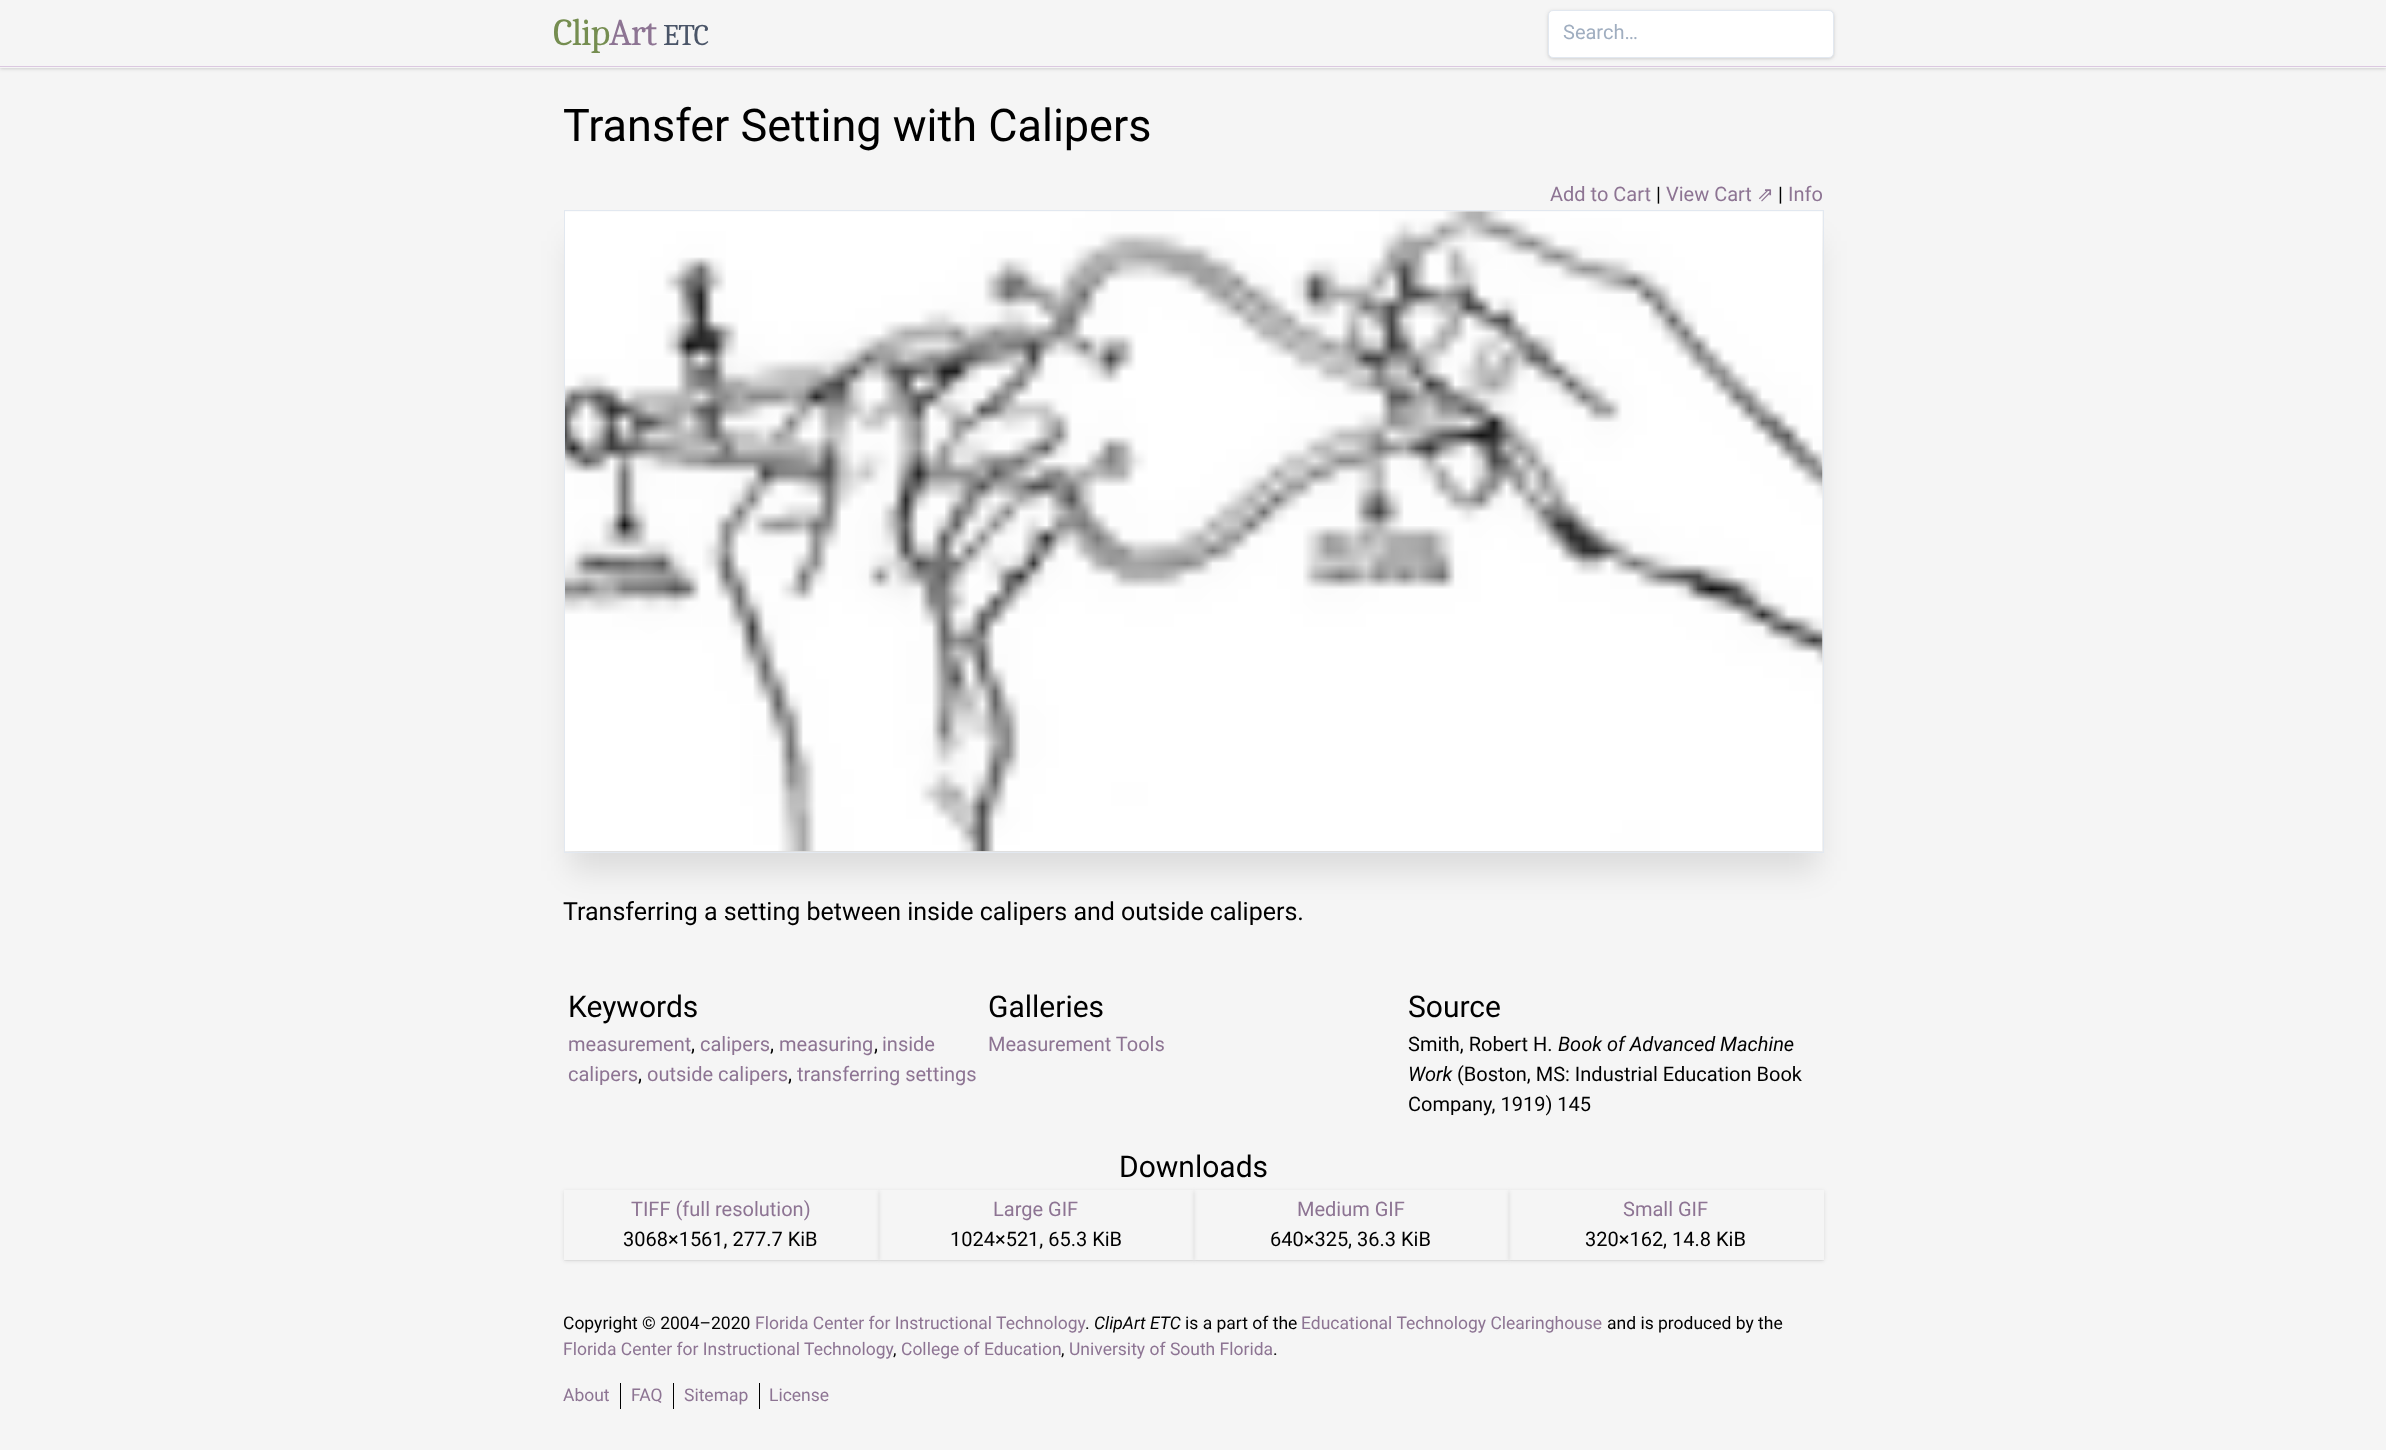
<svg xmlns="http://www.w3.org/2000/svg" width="2386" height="1450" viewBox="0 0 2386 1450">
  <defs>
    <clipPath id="clip1"><path d="M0 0H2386V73H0ZM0 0H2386V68H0Z" clip-rule="evenodd"/></clipPath>
    <clipPath id="clip2"><path d="M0 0H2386V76H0ZM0 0H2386V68H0Z" clip-rule="evenodd"/></clipPath>
    <clipPath id="clip3"><rect x="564" y="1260" width="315" height="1"/></clipPath>
    <clipPath id="clip4"><path d="M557 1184H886V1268H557ZM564 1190H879V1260H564Z" clip-rule="evenodd"/></clipPath>
    <clipPath id="clip5"><rect x="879" y="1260" width="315" height="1"/></clipPath>
    <clipPath id="clip6"><path d="M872 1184H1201V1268H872ZM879 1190H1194V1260H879Z" clip-rule="evenodd"/></clipPath>
    <clipPath id="clip7"><rect x="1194" y="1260" width="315" height="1"/></clipPath>
    <clipPath id="clip8"><path d="M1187 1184H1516V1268H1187ZM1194 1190H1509V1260H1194Z" clip-rule="evenodd"/></clipPath>
    <clipPath id="clip9"><rect x="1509" y="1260" width="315" height="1"/></clipPath>
    <clipPath id="clip10"><path d="M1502 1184H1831V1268H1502ZM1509 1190H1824V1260H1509Z" clip-rule="evenodd"/></clipPath>
  </defs>
  <rect width="100%" height="100%" fill="rgb(245,245,245)"/>
  <g clip-path="url(#clip1)">
    <rect x="0" y="1" width="2386" height="68" fill="rgba(0,0,0,0.06)" filter="blur(1px)"/>
  </g>
  <g clip-path="url(#clip2)">
    <rect x="0" y="1" width="2386" height="68" fill="rgba(0,0,0,0.1)" filter="blur(2px)"/>
  </g>
  <rect x="0" y="66" width="2386" height="1" fill="rgb(219,200,224)"/>
  <text x="553" y="45" font-family="Caladea" font-size="38" letter-spacing="-1" fill="rgb(117,141,80)">Clip</text>
  <text x="609" y="45" font-family="Caladea" font-size="38" letter-spacing="-1" fill="rgb(141,116,147)">Art</text>
  <text x="663" y="45" font-family="Caladea" font-size="30" letter-spacing="-1" fill="rgb(74,85,104)">ETC</text>
  <rect x="1548" y="11" width="286" height="48" rx="5" fill="rgba(0,0,0,0.06)" filter="blur(1px)"/>
  <rect x="1548" y="11" width="286" height="48" rx="5" fill="rgba(0,0,0,0.1)" filter="blur(2px)"/>
  <rect x="1548.5" y="10.5" width="285" height="47" rx="4.5" fill="rgb(255,255,255)" stroke="rgb(226,232,240)"/>
  <text x="1563" y="39" font-family="Roboto" font-size="20" fill="rgb(160,174,192)">Search…</text>
  <text x="563" y="141" font-family="Roboto" font-size="45" fill="rgb(0,0,0)">Transfer Setting with Calipers</text>
  <text x="1550" y="201" font-family="Roboto" font-size="20" fill="rgb(141,116,147)">Add to Cart</text>
  <text x="1656" y="201" font-family="Roboto" font-size="20" fill="rgb(0,0,0)">|</text>
  <text x="1666" y="201" font-family="Roboto" font-size="20" fill="rgb(141,116,147)">View Cart</text>
  <text x="1757" y="201" font-family="DejaVu Sans" font-size="20" fill="rgb(141,116,147)">⇗</text>
  <text x="1778" y="201" font-family="Roboto" font-size="20" fill="rgb(0,0,0)">|</text>
  <text x="1788" y="201" font-family="Roboto" font-size="20" fill="rgb(141,116,147)">Info</text>
  <rect x="570" y="241" width="1248" height="630" fill="rgba(0,0,0,0.1)" filter="blur(15.5px)"/>
  <rect x="564.5" y="210.5" width="1259" height="642" fill="none" stroke="rgb(226,232,240)"/>
  <image x="565" y="211" width="1258" height="641" href="pic1.png"/>
  <text x="563" y="920" font-family="Roboto" font-size="25" fill="rgb(0,0,0)">Transferring a setting between inside calipers and outside calipers.</text>
  <text x="568" y="1017" font-family="Roboto" font-size="30" fill="rgb(0,0,0)">Keywords</text>
  <text x="568" y="1051" font-family="Roboto" font-size="20" fill="rgb(141,116,147)">measurement</text>
  <text x="691" y="1051" font-family="Roboto" font-size="20" fill="rgb(0,0,0)">,</text>
  <text x="700" y="1051" font-family="Roboto" font-size="20" fill="rgb(141,116,147)">calipers</text>
  <text x="770" y="1051" font-family="Roboto" font-size="20" fill="rgb(0,0,0)">,</text>
  <text x="779" y="1051" font-family="Roboto" font-size="20" fill="rgb(141,116,147)">measuring</text>
  <text x="874" y="1051" font-family="Roboto" font-size="20" fill="rgb(0,0,0)">,</text>
  <g font-family="Roboto" font-size="20" fill="rgb(141,116,147)">
    <text x="882" y="1051">inside</text>
    <text x="568" y="1081">calipers</text>
  </g>
  <text x="638" y="1081" font-family="Roboto" font-size="20" fill="rgb(0,0,0)">,</text>
  <text x="647" y="1081" font-family="Roboto" font-size="20" fill="rgb(141,116,147)">outside calipers</text>
  <text x="788" y="1081" font-family="Roboto" font-size="20" fill="rgb(0,0,0)">,</text>
  <text x="797" y="1081" font-family="Roboto" font-size="20" fill="rgb(141,116,147)">transferring settings</text>
  <text x="988" y="1017" font-family="Roboto" font-size="30" fill="rgb(0,0,0)">Galleries</text>
  <text x="988" y="1051" font-family="Roboto" font-size="20" fill="rgb(141,116,147)">Measurement Tools</text>
  <text x="1408" y="1017" font-family="Roboto" font-size="30" fill="rgb(0,0,0)">Source</text>
  <text x="1408" y="1051" font-family="Roboto" font-size="20" fill="rgb(0,0,0)">Smith, Robert H.</text>
  <g font-family="Roboto" font-size="20" font-style="italic" fill="rgb(0,0,0)">
    <text x="1558" y="1051">Book of Advanced Machine</text>
    <text x="1408" y="1081">Work</text>
  </g>
  <g font-family="Roboto" font-size="20" fill="rgb(0,0,0)">
    <text x="1457" y="1081">(Boston, MS: Industrial Education Book</text>
    <text x="1408" y="1111">Company, 1919) 145</text>
  </g>
  <text x="1119" y="1177" font-family="Roboto" font-size="30" fill="rgb(0,0,0)">Downloads</text>
  <g clip-path="url(#clip3)">
    <rect x="564" y="1191" width="315" height="70" fill="rgba(0,0,0,0.06)" filter="blur(1px)"/>
  </g>
  <g clip-path="url(#clip4)">
    <rect x="564" y="1191" width="315" height="70" fill="rgba(0,0,0,0.1)" filter="blur(2px)"/>
  </g>
  <text x="631" y="1216" font-family="Roboto" font-size="20" fill="rgb(141,116,147)">TIFF (full resolution)</text>
  <text x="623" y="1246" font-family="Roboto" font-size="20" fill="rgb(0,0,0)">3068×1561, 277.7 KiB</text>
  <g clip-path="url(#clip5)">
    <rect x="879" y="1191" width="315" height="70" fill="rgba(0,0,0,0.06)" filter="blur(1px)"/>
  </g>
  <g clip-path="url(#clip6)">
    <rect x="879" y="1191" width="315" height="70" fill="rgba(0,0,0,0.1)" filter="blur(2px)"/>
  </g>
  <text x="993" y="1216" font-family="Roboto" font-size="20" fill="rgb(141,116,147)">Large GIF</text>
  <text x="950" y="1246" font-family="Roboto" font-size="20" fill="rgb(0,0,0)">1024×521, 65.3 KiB</text>
  <g clip-path="url(#clip7)">
    <rect x="1194" y="1191" width="315" height="70" fill="rgba(0,0,0,0.06)" filter="blur(1px)"/>
  </g>
  <g clip-path="url(#clip8)">
    <rect x="1194" y="1191" width="315" height="70" fill="rgba(0,0,0,0.1)" filter="blur(2px)"/>
  </g>
  <text x="1297" y="1216" font-family="Roboto" font-size="20" fill="rgb(141,116,147)">Medium GIF</text>
  <text x="1270" y="1246" font-family="Roboto" font-size="20" fill="rgb(0,0,0)">640×325, 36.3 KiB</text>
  <g clip-path="url(#clip9)">
    <rect x="1509" y="1191" width="315" height="70" fill="rgba(0,0,0,0.06)" filter="blur(1px)"/>
  </g>
  <g clip-path="url(#clip10)">
    <rect x="1509" y="1191" width="315" height="70" fill="rgba(0,0,0,0.1)" filter="blur(2px)"/>
  </g>
  <text x="1623" y="1216" font-family="Roboto" font-size="20" fill="rgb(141,116,147)">Small GIF</text>
  <text x="1585" y="1246" font-family="Roboto" font-size="20" fill="rgb(0,0,0)">320×162, 14.8 KiB</text>
  <text x="563" y="1329" font-family="Roboto" font-size="17.5" fill="rgb(0,0,0)">Copyright © 2004–2020</text>
  <text x="755" y="1329" font-family="Roboto" font-size="17.5" fill="rgb(141,116,147)">Florida Center for Instructional Technology</text>
  <text x="1085" y="1329" font-family="Roboto" font-size="17.5" fill="rgb(0,0,0)">.</text>
  <text x="1094" y="1329" font-family="Roboto" font-size="17.5" font-style="italic" fill="rgb(0,0,0)">ClipArt ETC</text>
  <text x="1185" y="1329" font-family="Roboto" font-size="17.5" fill="rgb(0,0,0)">is a part of the</text>
  <text x="1301" y="1329" font-family="Roboto" font-size="17.5" fill="rgb(141,116,147)">Educational Technology Clearinghouse</text>
  <text x="1607" y="1329" font-family="Roboto" font-size="17.5" fill="rgb(0,0,0)">and is produced by the</text>
  <text x="563" y="1355" font-family="Roboto" font-size="17.5" fill="rgb(141,116,147)">Florida Center for Instructional Technology</text>
  <text x="893" y="1355" font-family="Roboto" font-size="17.5" fill="rgb(0,0,0)">,</text>
  <text x="901" y="1355" font-family="Roboto" font-size="17.5" fill="rgb(141,116,147)">College of Education</text>
  <text x="1061" y="1355" font-family="Roboto" font-size="17.5" fill="rgb(0,0,0)">,</text>
  <text x="1069" y="1355" font-family="Roboto" font-size="17.5" fill="rgb(141,116,147)">University of South Florida</text>
  <text x="1273" y="1355" font-family="Roboto" font-size="17.5" fill="rgb(0,0,0)">.</text>
  <rect x="620" y="1383" width="1" height="26" fill="rgb(0,0,0)"/>
  <text x="563" y="1401" font-family="Roboto" font-size="17.5" fill="rgb(141,116,147)">About</text>
  <rect x="673" y="1383" width="1" height="26" fill="rgb(0,0,0)"/>
  <text x="631" y="1401" font-family="Roboto" font-size="17.5" fill="rgb(141,116,147)">FAQ</text>
  <rect x="759" y="1383" width="1" height="26" fill="rgb(0,0,0)"/>
  <g font-family="Roboto" font-size="17.5" fill="rgb(141,116,147)">
    <text x="684" y="1401">Sitemap</text>
    <text x="769" y="1401">License</text>
  </g>
</svg>
